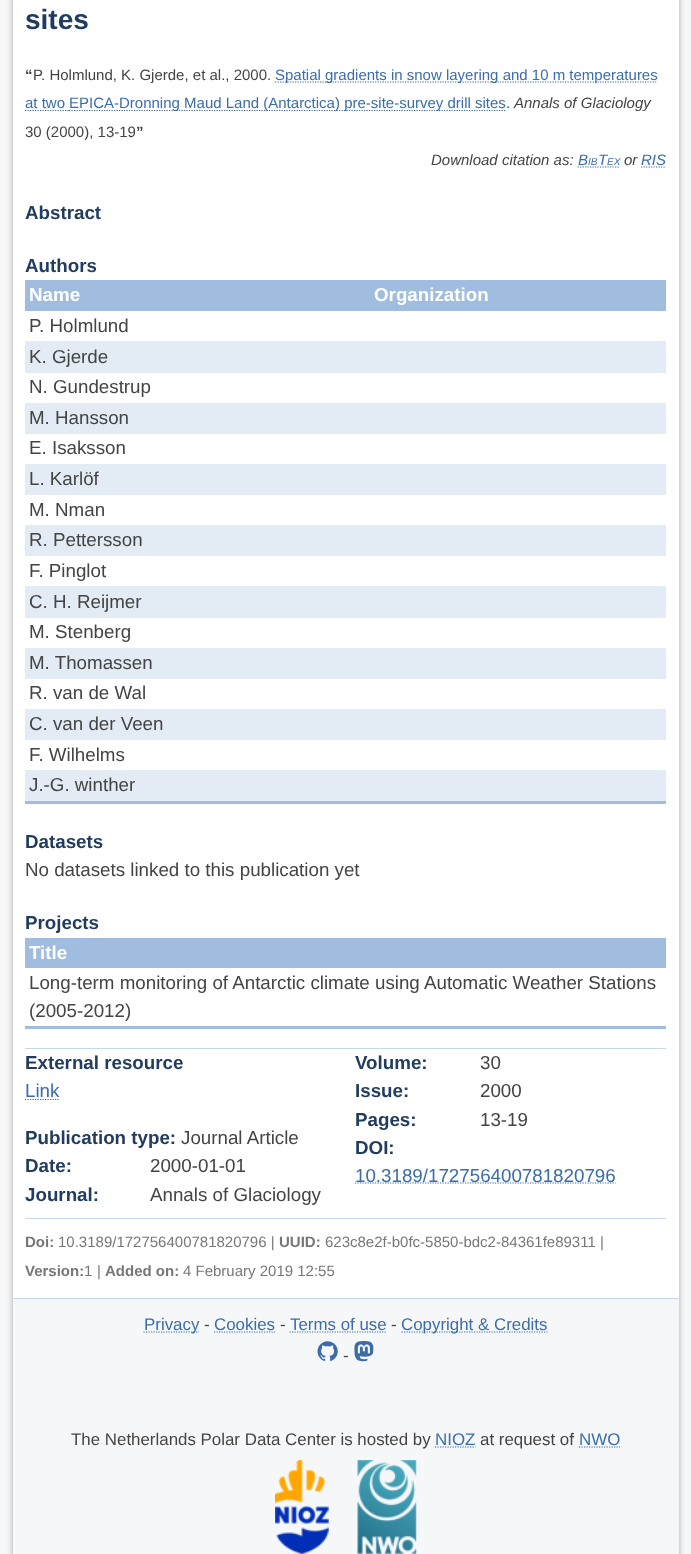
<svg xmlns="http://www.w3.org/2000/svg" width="691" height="1554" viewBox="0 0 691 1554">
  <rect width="100%" height="100%" fill="rgb(246,247,249)"/>
  <rect x="13" y="-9" width="666" height="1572" fill="rgb(170,170,170)" filter="blur(3px)"/>
  <rect x="13" y="0" width="666" height="1298" fill="rgb(255,255,255)"/>
  <text x="25" y="29" font-family="Liberation Sans" font-size="28" font-weight="bold" fill="rgb(33,60,94)">sites</text>
  <text x="25" y="80" font-family="Liberation Sans" font-size="15" font-weight="bold" fill="rgb(68,68,68)">“</text>
  <text x="33" y="80" font-family="Liberation Sans" font-size="15" fill="rgb(68,68,68)">P. Holmlund, K. Gjerde, et al., 2000.</text>
  <path d="M275 82H657.5" fill="none" stroke="rgb(59,109,170)" stroke-width="1.2" stroke-dasharray="1.25 1.25"/>
  <g font-family="Liberation Sans" font-size="15" fill="rgb(59,109,170)">
    <text x="275" y="80">Spatial gradients in snow layering and 10 m temperatures</text>
    <text x="25" y="108">at two</text>
  </g>
  <path d="M69 110.5H506" fill="none" stroke="rgb(59,109,170)" stroke-width="1.2" stroke-dasharray="1.25 1.25"/>
  <text x="69" y="108" font-family="Liberation Sans" font-size="15" fill="rgb(59,109,170)">EPICA-Dronning Maud Land (Antarctica) pre-site-survey drill sites</text>
  <path d="M25 110.5H69" fill="none" stroke="rgb(59,109,170)" stroke-width="1.2" stroke-dasharray="1.25 1.25"/>
  <text x="506" y="108" font-family="Liberation Sans" font-size="15" fill="rgb(68,68,68)">.</text>
  <text x="514" y="108" font-family="Liberation Sans" font-size="15" font-style="italic" fill="rgb(68,68,68)">Annals of Glaciology</text>
  <text x="25" y="137" font-family="Liberation Sans" font-size="15" fill="rgb(68,68,68)">30 (2000), 13-19</text>
  <text x="136" y="137" font-family="Liberation Sans" font-size="15" font-weight="bold" fill="rgb(68,68,68)">”</text>
  <text x="431" y="165" font-family="Liberation Sans" font-size="15" font-style="italic" fill="rgb(68,68,68)">Download citation as:</text>
  <text x="578" y="165" font-family="Liberation Sans" font-size="15" font-style="italic" fill="rgb(59,109,170)">B</text>
  <text x="588" y="165" font-family="Liberation Sans" font-size="10" font-style="italic" fill="rgb(59,109,170)">IB</text>
  <path d="M577.5 167H619.5" fill="none" stroke="rgb(59,109,170)" stroke-width="1.2" stroke-dasharray="1.25 1.25"/>
  <text x="598" y="165" font-family="Liberation Sans" font-size="15" font-style="italic" fill="rgb(59,109,170)">T</text>
  <text x="607" y="165" font-family="Liberation Sans" font-size="10" font-style="italic" fill="rgb(59,109,170)">EX</text>
  <text x="624" y="165" font-family="Liberation Sans" font-size="15" font-style="italic" fill="rgb(68,68,68)">or</text>
  <text x="641" y="165" font-family="Liberation Sans" font-size="15" font-style="italic" fill="rgb(59,109,170)">RIS</text>
  <path d="M641 167H666M641 167H666" fill="none" stroke="rgb(59,109,170)" stroke-width="1.2" stroke-dasharray="1.25 1.25"/>
  <g font-family="Liberation Sans" font-size="18.75" font-weight="bold" fill="rgb(33,60,94)">
    <text x="25" y="219">Abstract</text>
    <text x="25" y="272">Authors</text>
  </g>
  <rect x="25" y="280" width="641" height="31" fill="rgb(160,188,222)"/>
  <g font-family="Liberation Sans" font-size="18.75" font-weight="bold" fill="rgb(255,255,255)">
    <text x="29" y="301">Name</text>
    <text x="374" y="301">Organization</text>
  </g>
  <text x="29" y="332" font-family="Liberation Sans" font-size="18.75" fill="rgb(68,68,68)">P. Holmlund</text>
  <rect x="25" y="341" width="641" height="32" fill="rgb(227,235,245)"/>
  <g font-family="Liberation Sans" font-size="18.75" fill="rgb(68,68,68)">
    <text>
      <tspan x="29" y="363">K. Gjerde</tspan>
      <tspan x="29" y="393">N. Gundestrup</tspan>
    </text>
  </g>
  <rect x="25" y="403" width="641" height="31" fill="rgb(227,235,245)"/>
  <g font-family="Liberation Sans" font-size="18.75" fill="rgb(68,68,68)">
    <text>
      <tspan x="29" y="424">M. Hansson</tspan>
      <tspan x="29" y="454">E. Isaksson</tspan>
    </text>
  </g>
  <rect x="25" y="464" width="641" height="31" fill="rgb(227,235,245)"/>
  <g font-family="Liberation Sans" font-size="18.75" fill="rgb(68,68,68)">
    <text>
      <tspan x="29" y="485">L. Karlöf</tspan>
      <tspan x="29" y="516">M. Nman</tspan>
    </text>
  </g>
  <rect x="25" y="525" width="641" height="31" fill="rgb(227,235,245)"/>
  <g font-family="Liberation Sans" font-size="18.75" fill="rgb(68,68,68)">
    <text>
      <tspan x="29" y="546">R. Pettersson</tspan>
      <tspan x="29" y="577">F. Pinglot</tspan>
    </text>
  </g>
  <rect x="25" y="586" width="641" height="32" fill="rgb(227,235,245)"/>
  <g font-family="Liberation Sans" font-size="18.75" fill="rgb(68,68,68)">
    <text>
      <tspan x="29" y="608">C. H. Reijmer</tspan>
      <tspan x="29" y="638">M. Stenberg</tspan>
    </text>
  </g>
  <rect x="25" y="648" width="641" height="31" fill="rgb(227,235,245)"/>
  <g font-family="Liberation Sans" font-size="18.75" fill="rgb(68,68,68)">
    <text>
      <tspan x="29" y="669">M. Thomassen</tspan>
      <tspan x="29" y="699">R. van de Wal</tspan>
    </text>
  </g>
  <rect x="25" y="709" width="641" height="31" fill="rgb(227,235,245)"/>
  <g font-family="Liberation Sans" font-size="18.75" fill="rgb(68,68,68)">
    <text>
      <tspan x="29" y="730">C. van der Veen</tspan>
      <tspan x="29" y="761">F. Wilhelms</tspan>
    </text>
  </g>
  <rect x="25" y="770" width="641" height="31" fill="rgb(227,235,245)"/>
  <text x="29" y="791" font-family="Liberation Sans" font-size="18.75" fill="rgb(68,68,68)">J.-G. winther</text>
  <rect x="25" y="801" width="641" height="3" fill="rgb(160,188,222)"/>
  <text x="25" y="848" font-family="Liberation Sans" font-size="18.75" font-weight="bold" fill="rgb(33,60,94)">Datasets</text>
  <text x="25" y="876" font-family="Liberation Sans" font-size="18.75" fill="rgb(68,68,68)">No datasets linked to this publication yet</text>
  <text x="25" y="929" font-family="Liberation Sans" font-size="18.75" font-weight="bold" fill="rgb(33,60,94)">Projects</text>
  <rect x="25" y="938" width="641" height="30" fill="rgb(160,188,222)"/>
  <text x="29" y="959" font-family="Liberation Sans" font-size="18.75" font-weight="bold" fill="rgb(255,255,255)">Title</text>
  <g font-family="Liberation Sans" font-size="18.75" fill="rgb(68,68,68)">
    <text>
      <tspan x="29" y="989">Long-term monitoring of Antarctic climate using Automatic Weather Stations</tspan>
      <tspan x="29" y="1017">(2005-2012)</tspan>
    </text>
  </g>
  <rect x="25" y="1026" width="641" height="3" fill="rgb(160,188,222)"/>
  <rect x="25" y="1048" width="641" height="1" fill="rgb(198,215,235)"/>
  <g font-family="Liberation Sans" font-size="18.75" font-weight="bold" fill="rgb(33,60,94)">
    <text x="25" y="1069">External resource</text>
    <text x="355" y="1069">Volume:</text>
  </g>
  <text x="480" y="1069" font-family="Liberation Sans" font-size="18.75" fill="rgb(68,68,68)">30</text>
  <text x="25" y="1097" font-family="Liberation Sans" font-size="18.75" fill="rgb(59,109,170)">Link</text>
  <path d="M25 1099.5H59.5" fill="none" stroke="rgb(59,109,170)" stroke-width="1.2" stroke-dasharray="1.25 1.25"/>
  <text x="355" y="1097" font-family="Liberation Sans" font-size="18.75" font-weight="bold" fill="rgb(33,60,94)">Issue:</text>
  <text x="480" y="1097" font-family="Liberation Sans" font-size="18.75" fill="rgb(68,68,68)">2000</text>
  <text x="355" y="1126" font-family="Liberation Sans" font-size="18.75" font-weight="bold" fill="rgb(33,60,94)">Pages:</text>
  <text x="480" y="1126" font-family="Liberation Sans" font-size="18.75" fill="rgb(68,68,68)">13-19</text>
  <text x="25" y="1144" font-family="Liberation Sans" font-size="18.75" font-weight="bold" fill="rgb(33,60,94)">Publication type:</text>
  <text x="181" y="1144" font-family="Liberation Sans" font-size="18.75" fill="rgb(68,68,68)">Journal Article</text>
  <text x="355" y="1154" font-family="Liberation Sans" font-size="18.75" font-weight="bold" fill="rgb(33,60,94)">DOI:</text>
  <path d="M355 1183H615.5" fill="none" stroke="rgb(59,109,170)" stroke-width="1.2" stroke-dasharray="1.25 1.25"/>
  <text x="355" y="1182" font-family="Liberation Sans" font-size="18.75" fill="rgb(59,109,170)">10.3189/172756400781820796</text>
  <text x="25" y="1172" font-family="Liberation Sans" font-size="18.75" font-weight="bold" fill="rgb(33,60,94)">Date:</text>
  <text x="150" y="1172" font-family="Liberation Sans" font-size="18.75" fill="rgb(68,68,68)">2000-01-01</text>
  <text x="25" y="1201" font-family="Liberation Sans" font-size="18.75" font-weight="bold" fill="rgb(33,60,94)">Journal:</text>
  <text x="150" y="1201" font-family="Liberation Sans" font-size="18.75" fill="rgb(68,68,68)">Annals of Glaciology</text>
  <rect x="25" y="1218" width="641" height="1" fill="rgb(198,215,235)"/>
  <text x="25" y="1247" font-family="Liberation Sans" font-size="15" font-weight="bold" fill="rgb(119,119,119)">Doi:</text>
  <text x="58" y="1247" font-family="Liberation Sans" font-size="15" fill="rgb(119,119,119)">10.3189/172756400781820796 |</text>
  <text x="279" y="1247" font-family="Liberation Sans" font-size="15" font-weight="bold" fill="rgb(119,119,119)">UUID:</text>
  <text x="325" y="1247" font-family="Liberation Sans" font-size="15" fill="rgb(119,119,119)">623c8e2f-b0fc-5850-bdc2-84361fe89311 |</text>
  <text x="25" y="1276" font-family="Liberation Sans" font-size="15" font-weight="bold" fill="rgb(119,119,119)">Version:</text>
  <g font-family="Liberation Sans" font-size="15" fill="rgb(119,119,119)">
    <text x="84" y="1276">1</text>
    <text x="97" y="1276">|</text>
  </g>
  <text x="105" y="1276" font-family="Liberation Sans" font-size="15" font-weight="bold" fill="rgb(119,119,119)">Added on:</text>
  <text x="183" y="1276" font-family="Liberation Sans" font-size="15" fill="rgb(119,119,119)">4 February 2019 12:55</text>
  <rect x="13" y="1299" width="666" height="255" fill="rgb(246,247,249)"/>
  <rect x="13" y="1298" width="666" height="1" fill="rgb(198,215,235)"/>
  <path d="M143.5 1332H199" fill="none" stroke="rgb(59,109,170)" stroke-width="1.2" stroke-dasharray="1.25 1.25"/>
  <text x="144" y="1330" font-family="Liberation Sans" font-size="16.9" fill="rgb(59,109,170)">Privacy</text>
  <text x="204" y="1330" font-family="Liberation Sans" font-size="16.9" fill="rgb(68,68,68)">-</text>
  <text x="214" y="1330" font-family="Liberation Sans" font-size="16.9" fill="rgb(59,109,170)">Cookies</text>
  <path d="M214 1332H275" fill="none" stroke="rgb(59,109,170)" stroke-width="1.2" stroke-dasharray="1.25 1.25"/>
  <text x="280" y="1330" font-family="Liberation Sans" font-size="16.9" fill="rgb(68,68,68)">-</text>
  <text x="290" y="1330" font-family="Liberation Sans" font-size="16.9" fill="rgb(59,109,170)">Terms of use</text>
  <path d="M289.5 1332H386.5" fill="none" stroke="rgb(59,109,170)" stroke-width="1.2" stroke-dasharray="1.25 1.25"/>
  <text x="391" y="1330" font-family="Liberation Sans" font-size="16.9" fill="rgb(68,68,68)">-</text>
  <path d="M401.5 1332H547.5" fill="none" stroke="rgb(59,109,170)" stroke-width="1.2" stroke-dasharray="1.25 1.25"/>
  <text x="401" y="1330" font-family="Liberation Sans" font-size="16.9" fill="rgb(59,109,170)">Copyright &amp; Credits</text>
  <image x="317" y="1341" width="21" height="20" href="pic1.png"/>
  <text x="343" y="1361" font-family="Liberation Sans" font-size="16.9" fill="rgb(68,68,68)">-</text>
  <image x="354" y="1341" width="20" height="21" href="pic2.png"/>
  <text x="71" y="1445" font-family="Liberation Sans" font-size="16.9" fill="rgb(68,68,68)">The Netherlands Polar Data Center is hosted by</text>
  <text x="435" y="1445" font-family="Liberation Sans" font-size="16.9" fill="rgb(59,109,170)">NIOZ</text>
  <path d="M435 1447H475.5" fill="none" stroke="rgb(59,109,170)" stroke-width="1.2" stroke-dasharray="1.25 1.25"/>
  <text x="480" y="1445" font-family="Liberation Sans" font-size="16.9" fill="rgb(68,68,68)">at request of</text>
  <text x="579" y="1445" font-family="Liberation Sans" font-size="16.9" fill="rgb(59,109,170)">NWO</text>
  <path d="M579 1447H620" fill="none" stroke="rgb(59,109,170)" stroke-width="1.2" stroke-dasharray="1.25 1.25"/>
  <image x="275" y="1460" width="54" height="94" href="pic3.png"/>
  <image x="357" y="1460" width="60" height="94" href="pic4.png"/>
</svg>
